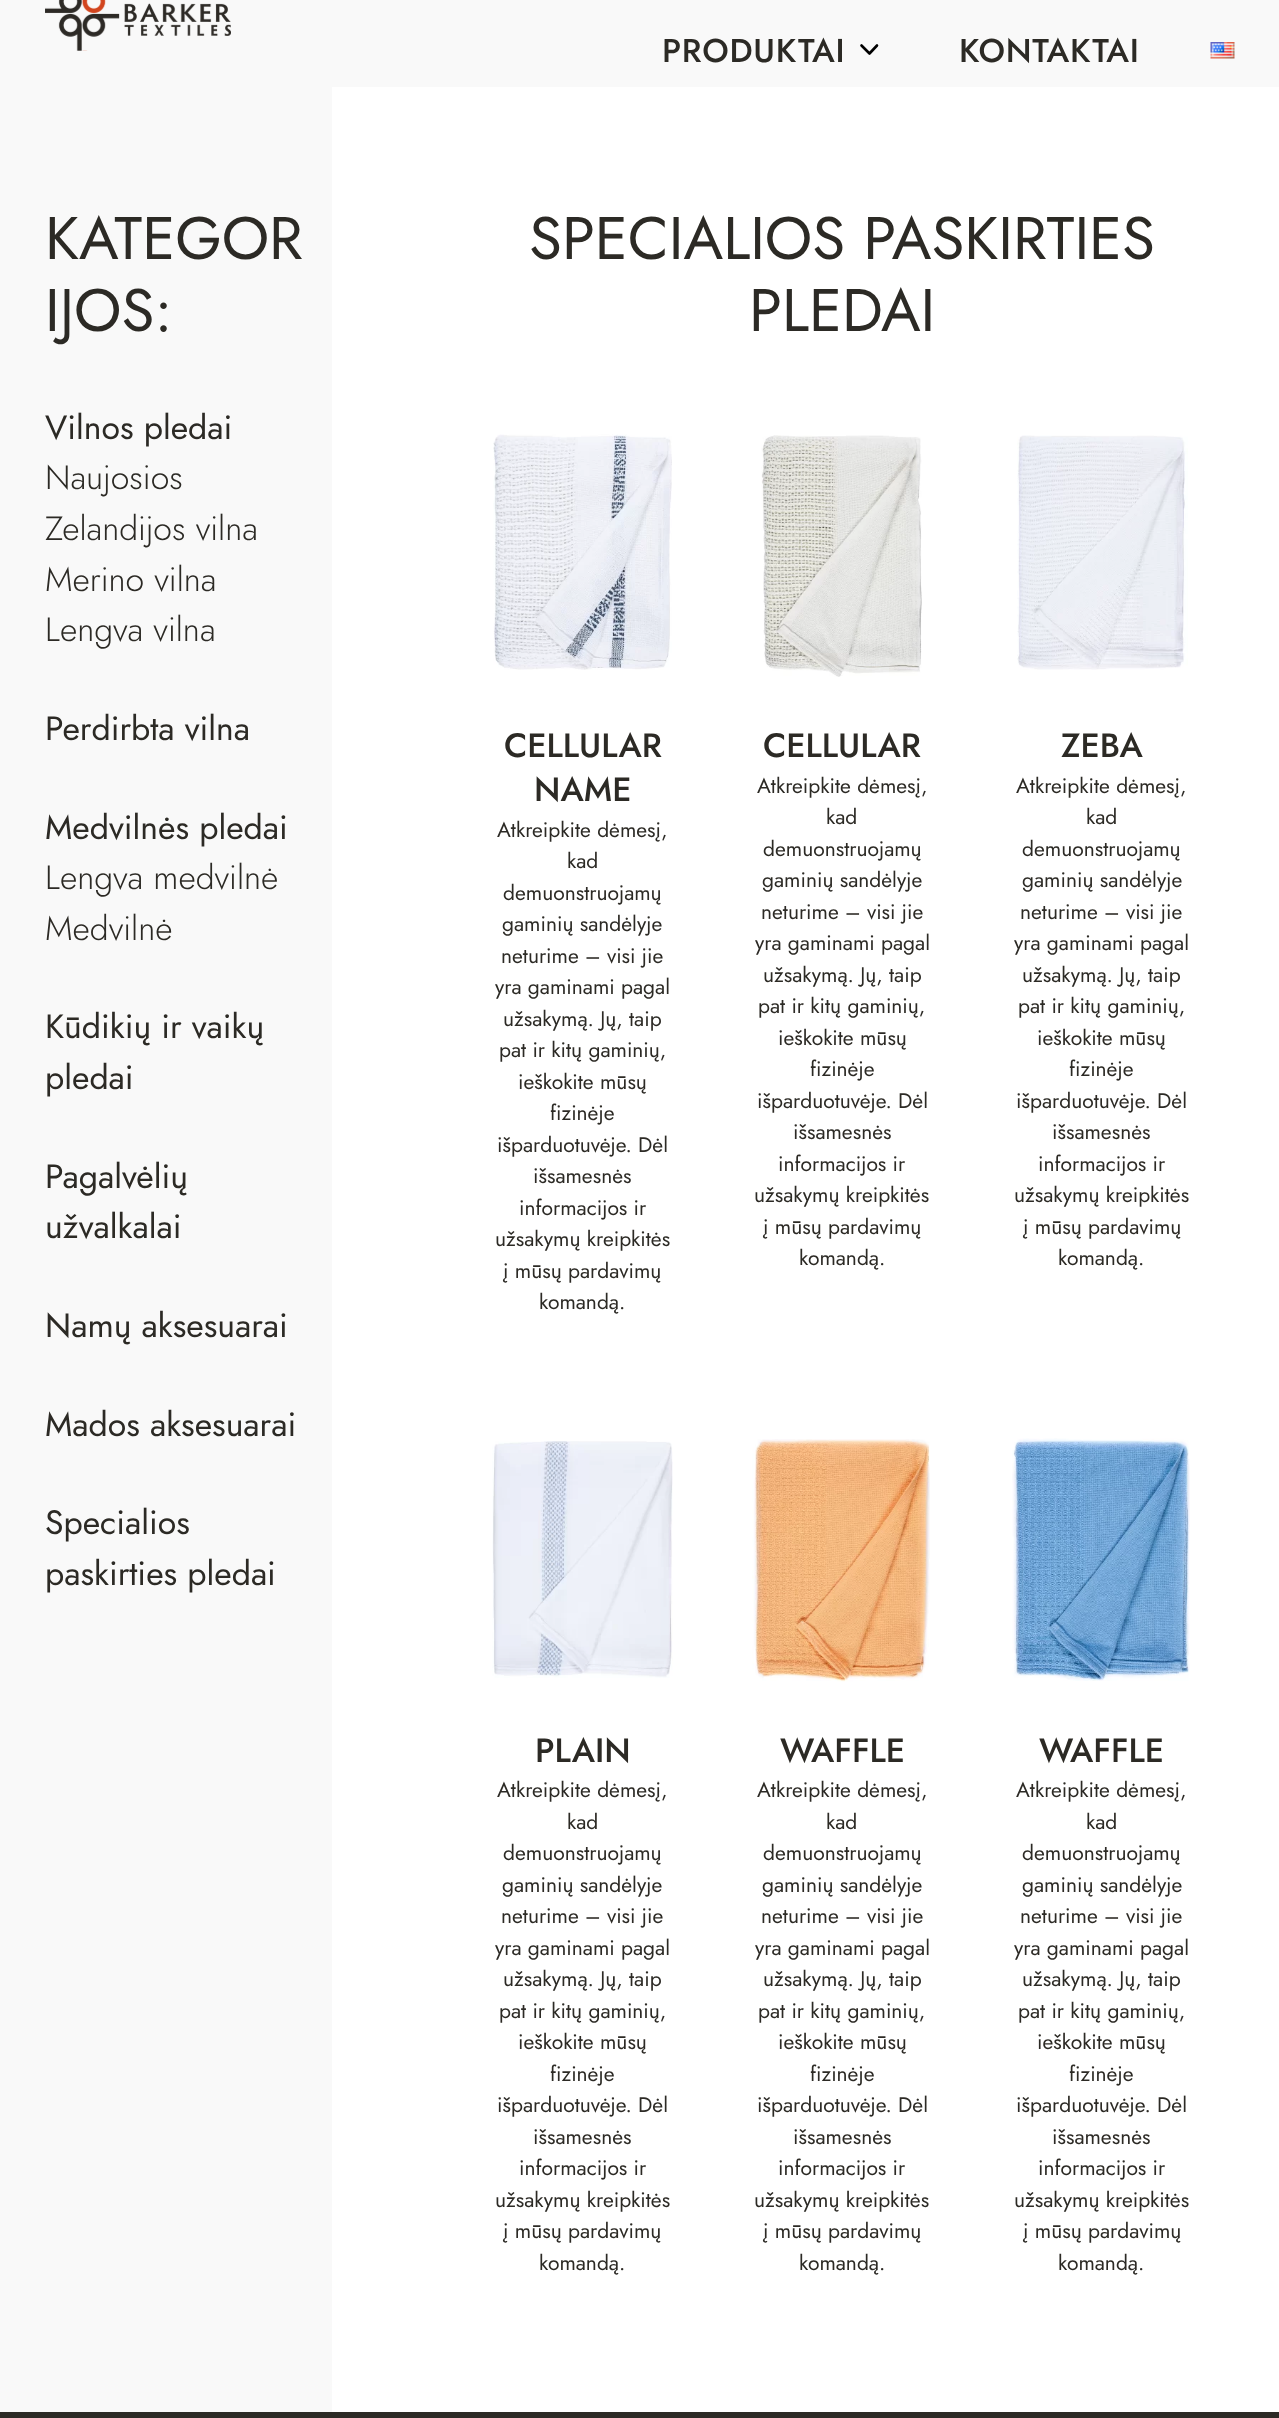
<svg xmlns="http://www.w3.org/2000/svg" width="1279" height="2418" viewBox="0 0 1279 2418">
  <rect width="100%" height="100%" fill="rgb(255,255,255)"/>
  <rect x="0" y="0" width="1279" height="87" fill="rgb(249,249,249)"/>
  <image x="45" y="0" width="186" height="51" href="pic1.png"/>
  <text x="662" y="62" font-family="Jost" font-size="33" font-weight="500" letter-spacing="0.75" fill="rgb(44,42,37)">PRODUKTAI</text>
  <path d="M861.5 45.5L869.5 53.5L877 45.5" fill="none" stroke="rgb(0,0,0)" stroke-width="2.6" stroke-linecap="round" stroke-linejoin="round"/>
  <text x="959" y="62" font-family="Jost" font-size="33" font-weight="500" letter-spacing="0.75" fill="rgb(44,42,37)">KONTAKTAI</text>
  <image x="1210" y="42" width="25" height="17" href="pic2.png"/>
  <rect x="0" y="87" width="332" height="2325" fill="rgb(249,249,249)"/>
  <g font-family="Jost" font-size="60" fill="rgb(44,42,37)">
    <text>
      <tspan x="45" y="259">KATEGOR</tspan>
      <tspan x="45" y="331">IJOS:</tspan>
    </text>
  </g>
  <text x="45" y="439" font-family="Jost" font-size="33.75" fill="rgb(44,42,37)">Vilnos pledai</text>
  <g font-family="Jost" font-size="33.75" font-weight="300" fill="rgb(44,42,37)">
    <text>
      <tspan x="45" y="489">Naujosios</tspan>
      <tspan x="45" y="540">Zelandijos vilna</tspan>
      <tspan x="45" y="591">Merino vilna</tspan>
      <tspan x="45" y="641">Lengva vilna</tspan>
    </text>
  </g>
  <g font-family="Jost" font-size="33.75" fill="rgb(44,42,37)">
    <text x="45" y="740">Perdirbta vilna</text>
    <text x="45" y="839">Medvilnės pledai</text>
  </g>
  <g font-family="Jost" font-size="33.75" font-weight="300" fill="rgb(44,42,37)">
    <text>
      <tspan x="45" y="889">Lengva medvilnė</tspan>
      <tspan x="45" y="940">Medvilnė</tspan>
    </text>
  </g>
  <g font-family="Jost" font-size="33.75" fill="rgb(44,42,37)">
    <text>
      <tspan x="45" y="1038">Kūdikių ir vaikų</tspan>
      <tspan x="45" y="1089">pledai</tspan>
    </text>
    <text>
      <tspan x="45" y="1188">Pagalvėlių</tspan>
      <tspan x="45" y="1238">užvalkalai</tspan>
    </text>
    <text x="45" y="1337">Namų aksesuarai</text>
    <text x="45" y="1436">Mados aksesuarai</text>
    <text>
      <tspan x="45" y="1534">Specialios</tspan>
      <tspan x="45" y="1585">paskirties pledai</tspan>
    </text>
  </g>
  <g font-family="Jost" font-size="60" fill="rgb(44,42,37)">
    <text x="529" y="259">SPECIALIOS PASKIRTIES</text>
    <text x="749" y="331">PLEDAI</text>
  </g>
  <image x="493" y="434" width="179" height="236" href="pic3.png"/>
  <g font-family="Jost" font-size="33.75" font-weight="500" fill="rgb(44,42,37)">
    <text x="504" y="757">CELLULAR</text>
    <text x="534" y="801">NAME</text>
  </g>
  <g font-family="Jost" font-size="21" fill="rgb(44,42,37)">
    <text x="497" y="837">Atkreipkite dėmesį,</text>
    <text x="567" y="868">kad</text>
    <text x="503" y="900">demuonstruojamų</text>
    <text x="502" y="931">gaminių sandėlyje</text>
    <text x="501" y="963">neturime – visi jie</text>
    <text x="495" y="994">yra gaminami pagal</text>
    <text x="503" y="1026">užsakymą. Jų, taip</text>
    <text x="499" y="1057">pat ir kitų gaminių,</text>
    <text x="518" y="1089">ieškokite mūsų</text>
    <text x="550" y="1120">fizinėje</text>
    <text x="497" y="1152">išparduotuvėje. Dėl</text>
    <text x="533" y="1183">išsamesnės</text>
    <text x="519" y="1215">informacijos ir</text>
    <text x="495" y="1246">užsakymų kreipkitės</text>
    <text x="503" y="1278">į mūsų pardavimų</text>
    <text x="539" y="1309">komandą.</text>
  </g>
  <image x="761" y="435" width="161" height="242" href="pic4.png"/>
  <text x="763" y="757" font-family="Jost" font-size="33.75" font-weight="500" fill="rgb(44,42,37)">CELLULAR</text>
  <g font-family="Jost" font-size="21" fill="rgb(44,42,37)">
    <text x="757" y="793">Atkreipkite dėmesį,</text>
    <text x="826" y="824">kad</text>
    <text x="763" y="856">demuonstruojamų</text>
    <text x="762" y="887">gaminių sandėlyje</text>
    <text x="761" y="919">neturime – visi jie</text>
    <text x="755" y="950">yra gaminami pagal</text>
    <text x="763" y="982">užsakymą. Jų, taip</text>
    <text x="758" y="1013">pat ir kitų gaminių,</text>
    <text x="778" y="1045">ieškokite mūsų</text>
    <text x="810" y="1076">fizinėje</text>
    <text x="757" y="1108">išparduotuvėje. Dėl</text>
    <text x="793" y="1139">išsamesnės</text>
    <text x="778" y="1171">informacijos ir</text>
    <text x="754" y="1202">užsakymų kreipkitės</text>
    <text x="763" y="1234">į mūsų pardavimų</text>
    <text x="799" y="1265">komandą.</text>
  </g>
  <image x="1017" y="435" width="171" height="235" href="pic5.png"/>
  <text x="1061" y="757" font-family="Jost" font-size="33.75" font-weight="500" fill="rgb(44,42,37)">ZEBA</text>
  <g font-family="Jost" font-size="21" fill="rgb(44,42,37)">
    <text x="1016" y="793">Atkreipkite dėmesį,</text>
    <text x="1086" y="824">kad</text>
    <text>
      <tspan x="1022" y="856">demuonstruojamų</tspan>
      <tspan x="1022" y="887">gaminių sandėlyje</tspan>
    </text>
    <text x="1020" y="919">neturime – visi jie</text>
    <text x="1014" y="950">yra gaminami pagal</text>
    <text x="1022" y="982">užsakymą. Jų, taip</text>
    <text x="1018" y="1013">pat ir kitų gaminių,</text>
    <text x="1037" y="1045">ieškokite mūsų</text>
    <text x="1069" y="1076">fizinėje</text>
    <text x="1016" y="1108">išparduotuvėje. Dėl</text>
    <text x="1052" y="1139">išsamesnės</text>
    <text x="1038" y="1171">informacijos ir</text>
    <text x="1014" y="1202">užsakymų kreipkitės</text>
    <text x="1023" y="1234">į mūsų pardavimų</text>
    <text x="1058" y="1265">komandą.</text>
  </g>
  <image x="492" y="1441" width="181" height="237" href="pic6.png"/>
  <text x="535" y="1762" font-family="Jost" font-size="33.75" font-weight="500" fill="rgb(44,42,37)">PLAIN</text>
  <g font-family="Jost" font-size="21" fill="rgb(44,42,37)">
    <text x="497" y="1797">Atkreipkite dėmesį,</text>
    <text x="567" y="1829">kad</text>
    <text x="503" y="1860">demuonstruojamų</text>
    <text x="502" y="1892">gaminių sandėlyje</text>
    <text x="501" y="1923">neturime – visi jie</text>
    <text x="495" y="1955">yra gaminami pagal</text>
    <text x="503" y="1986">užsakymą. Jų, taip</text>
    <text x="499" y="2018">pat ir kitų gaminių,</text>
    <text x="518" y="2049">ieškokite mūsų</text>
    <text x="550" y="2081">fizinėje</text>
    <text x="497" y="2112">išparduotuvėje. Dėl</text>
    <text x="533" y="2144">išsamesnės</text>
    <text x="519" y="2175">informacijos ir</text>
    <text x="495" y="2207">užsakymų kreipkitės</text>
    <text x="503" y="2238">į mūsų pardavimų</text>
    <text x="539" y="2270">komandą.</text>
  </g>
  <image x="752" y="1439" width="178" height="243" href="pic7.png"/>
  <text x="780" y="1762" font-family="Jost" font-size="33.75" font-weight="500" fill="rgb(44,42,37)">WAFFLE</text>
  <g font-family="Jost" font-size="21" fill="rgb(44,42,37)">
    <text x="757" y="1797">Atkreipkite dėmesį,</text>
    <text x="826" y="1829">kad</text>
    <text x="763" y="1860">demuonstruojamų</text>
    <text x="762" y="1892">gaminių sandėlyje</text>
    <text x="761" y="1923">neturime – visi jie</text>
    <text x="755" y="1955">yra gaminami pagal</text>
    <text x="763" y="1986">užsakymą. Jų, taip</text>
    <text x="758" y="2018">pat ir kitų gaminių,</text>
    <text x="778" y="2049">ieškokite mūsų</text>
    <text x="810" y="2081">fizinėje</text>
    <text x="757" y="2112">išparduotuvėje. Dėl</text>
    <text x="793" y="2144">išsamesnės</text>
    <text x="778" y="2175">informacijos ir</text>
    <text x="754" y="2207">užsakymų kreipkitės</text>
    <text x="763" y="2238">į mūsų pardavimų</text>
    <text x="799" y="2270">komandą.</text>
  </g>
  <image x="1012" y="1438" width="178" height="243" href="pic8.png"/>
  <text x="1039" y="1762" font-family="Jost" font-size="33.75" font-weight="500" fill="rgb(44,42,37)">WAFFLE</text>
  <g font-family="Jost" font-size="21" fill="rgb(44,42,37)">
    <text x="1016" y="1797">Atkreipkite dėmesį,</text>
    <text x="1086" y="1829">kad</text>
    <text>
      <tspan x="1022" y="1860">demuonstruojamų</tspan>
      <tspan x="1022" y="1892">gaminių sandėlyje</tspan>
    </text>
    <text x="1020" y="1923">neturime – visi jie</text>
    <text x="1014" y="1955">yra gaminami pagal</text>
    <text x="1022" y="1986">užsakymą. Jų, taip</text>
    <text x="1018" y="2018">pat ir kitų gaminių,</text>
    <text x="1037" y="2049">ieškokite mūsų</text>
    <text x="1069" y="2081">fizinėje</text>
    <text x="1016" y="2112">išparduotuvėje. Dėl</text>
    <text x="1052" y="2144">išsamesnės</text>
    <text x="1038" y="2175">informacijos ir</text>
    <text x="1014" y="2207">užsakymų kreipkitės</text>
    <text x="1023" y="2238">į mūsų pardavimų</text>
    <text x="1058" y="2270">komandą.</text>
  </g>
  <rect x="0" y="2412" width="1279" height="6" fill="rgb(44,42,37)"/>
</svg>
